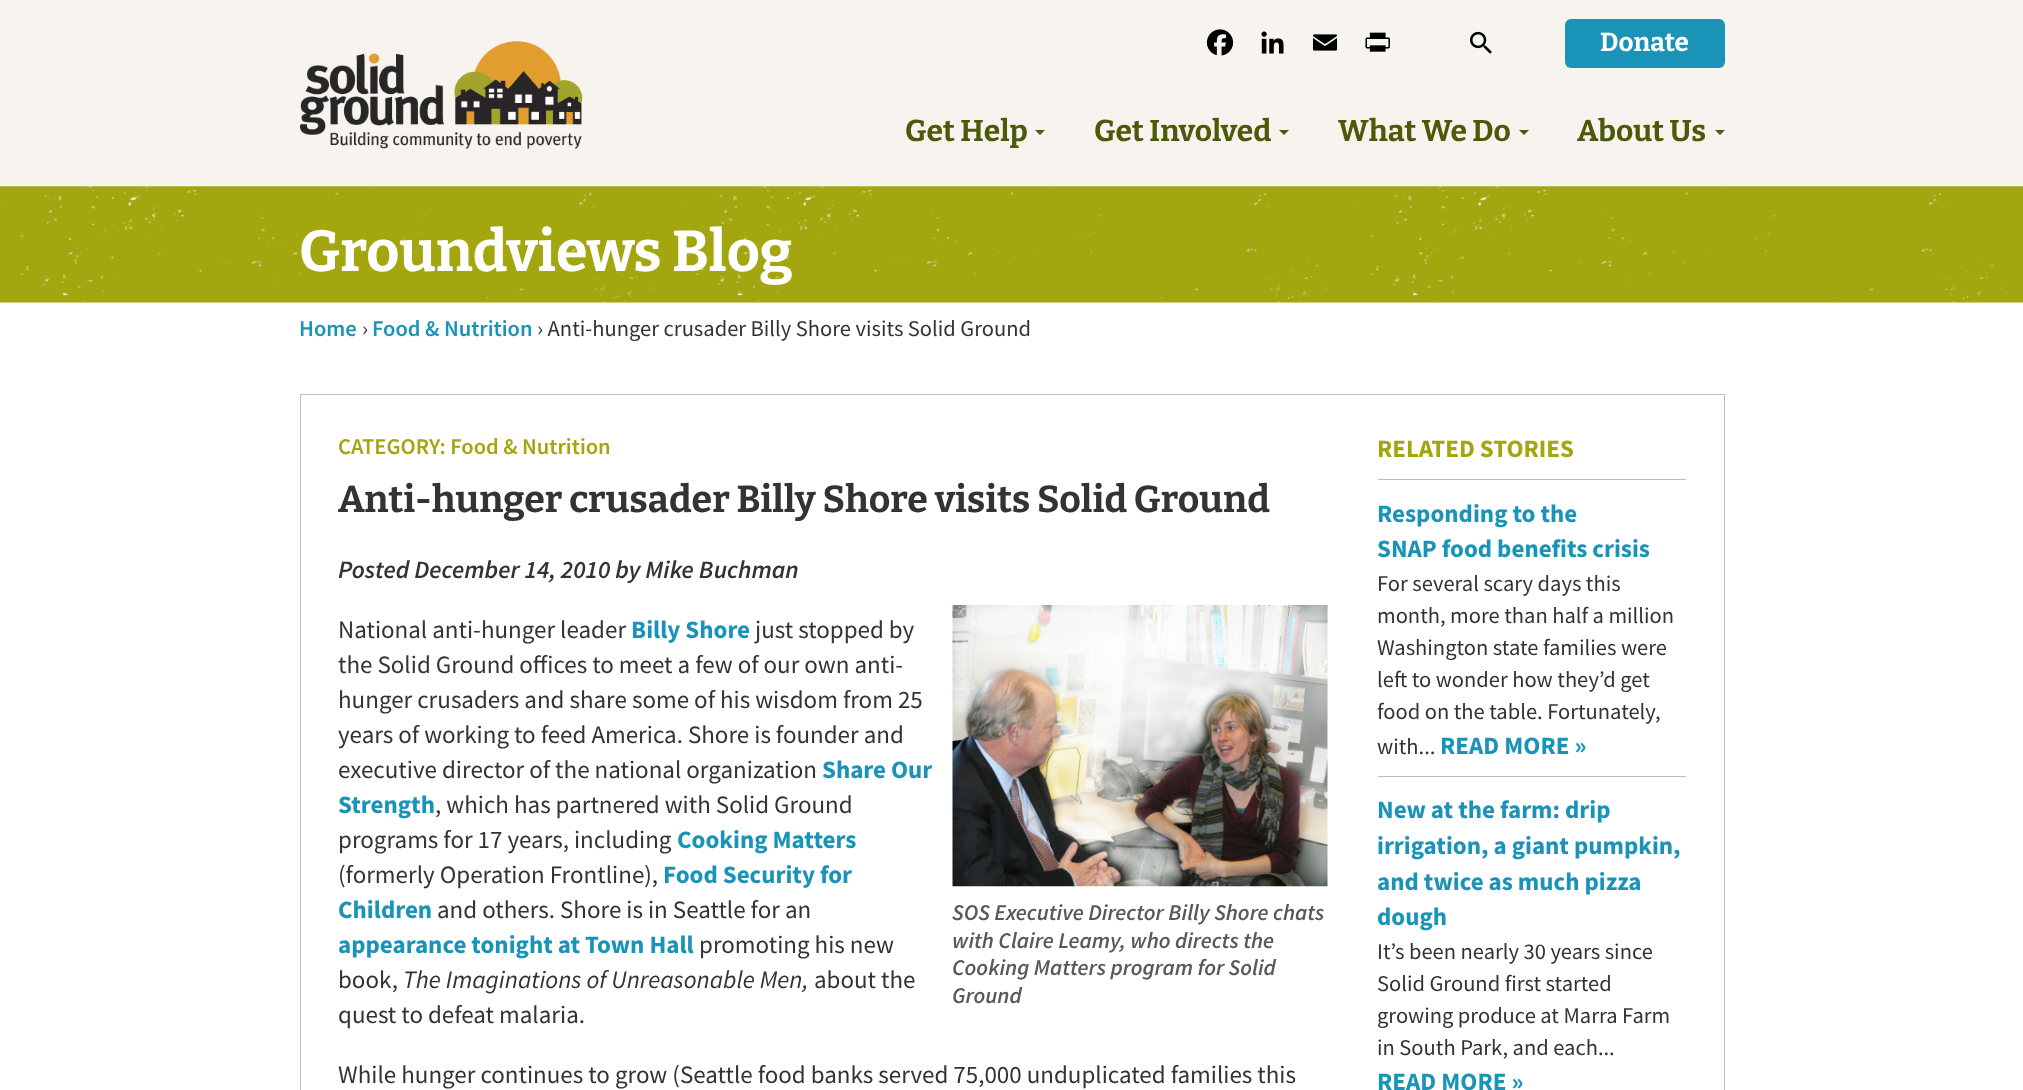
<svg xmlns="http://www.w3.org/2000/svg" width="2023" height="1090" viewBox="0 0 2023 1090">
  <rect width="100%" height="100%" fill="rgb(255,255,255)"/>
  <rect x="0" y="0" width="2023" height="186" fill="rgb(247,244,239)"/>
  <image x="1206" y="29" width="28" height="27" href="pic1.png"/>
  <image x="1261" y="31" width="23" height="23" href="pic2.png"/>
  <image x="1312" y="34" width="26" height="17" href="pic3.png"/>
  <image x="1365" y="32" width="25" height="20" href="pic4.png"/>
  <image x="1470" y="31" width="22" height="23" href="pic5.png"/>
  <rect x="1565" y="19" width="160" height="49" rx="6" fill="rgb(26,147,184)"/>
  <text x="1600" y="51" font-family="Bitter" font-size="26" font-weight="bold" fill="rgb(255,255,255)">Donate</text>
  <image x="300" y="41" width="283" height="108" href="pic6.png"/>
  <text x="905" y="141" font-family="Bitter" font-size="30" font-weight="bold" fill="rgb(77,89,9)">Get Help</text>
  <path d="M1035 130H1045L1040 135Z" fill="rgb(77,89,9)"/>
  <text x="1094" y="141" font-family="Bitter" font-size="30" font-weight="bold" fill="rgb(77,89,9)">Get Involved</text>
  <path d="M1279 130H1289L1284 135Z" fill="rgb(77,89,9)"/>
  <text x="1338" y="141" font-family="Bitter" font-size="30" font-weight="bold" fill="rgb(77,89,9)">What We Do</text>
  <path d="M1519 130H1529L1524 135Z" fill="rgb(77,89,9)"/>
  <text x="1577" y="141" font-family="Bitter" font-size="30" font-weight="bold" fill="rgb(77,89,9)">About Us</text>
  <path d="M1715 130H1725L1720 135Z" fill="rgb(77,89,9)"/>
  <image x="0" y="186" width="2023" height="117" href="pic7.png"/>
  <text x="299" y="271" font-family="Bitter" font-size="57.5" font-weight="bold" fill="rgb(255,255,255)">Groundviews Blog</text>
  <text x="299" y="336" font-family="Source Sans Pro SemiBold" font-size="22.5" font-weight="600" fill="rgb(26,147,184)">Home</text>
  <text x="362" y="336" font-family="Source Sans Pro" font-size="22.5" fill="rgb(51,51,51)">›</text>
  <text x="372" y="336" font-family="Source Sans Pro SemiBold" font-size="22.5" font-weight="600" fill="rgb(26,147,184)">Food &amp; Nutrition</text>
  <text x="537" y="336" font-family="Source Sans Pro" font-size="22.5" fill="rgb(51,51,51)">› Anti-hunger crusader Billy Shore visits Solid Ground</text>
  <rect x="300.5" y="394.5" width="1424" height="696" fill="none" stroke="rgb(189,189,189)"/>
  <text x="338" y="454" font-family="Source Sans Pro SemiBold" font-size="22.5" font-weight="600" fill="rgb(163,166,15)">CATEGORY: Food &amp; Nutrition</text>
  <text x="338" y="512" font-family="Bitter" font-size="37.5" font-weight="bold" fill="rgb(51,51,51)">Anti-hunger crusader Billy Shore visits Solid Ground</text>
  <text x="338" y="578" font-family="Source Sans Pro SemiBold" font-size="25" font-weight="600" font-style="italic" fill="rgb(51,51,51)">Posted December 14, 2010 by Mike Buchman</text>
  <text x="338" y="638" font-family="Source Sans Pro" font-size="25" fill="rgb(51,51,51)">National anti-hunger leader</text>
  <text x="631" y="638" font-family="Source Sans Pro" font-size="25" font-weight="bold" fill="rgb(26,147,184)">Billy Shore</text>
  <g font-family="Source Sans Pro" font-size="25" fill="rgb(51,51,51)">
    <text x="755" y="638">just stopped by</text>
    <text>
      <tspan x="338" y="673">the Solid Ground offices to meet a few of our own anti-</tspan>
      <tspan x="338" y="708">hunger crusaders and share some of his wisdom from 25</tspan>
      <tspan x="338" y="743">years of working to feed America. Shore is founder and</tspan>
      <tspan x="338" y="778">executive director of the national organization</tspan>
    </text>
  </g>
  <g font-family="Source Sans Pro" font-size="25" font-weight="bold" fill="rgb(26,147,184)">
    <text x="822" y="778">Share Our</text>
    <text x="338" y="813">Strength</text>
  </g>
  <g font-family="Source Sans Pro" font-size="25" fill="rgb(51,51,51)">
    <text x="435" y="813">, which has partnered with Solid Ground</text>
    <text x="338" y="848">programs for 17 years, including</text>
  </g>
  <text x="677" y="848" font-family="Source Sans Pro" font-size="25" font-weight="bold" fill="rgb(26,147,184)">Cooking Matters</text>
  <text x="338" y="883" font-family="Source Sans Pro" font-size="25" fill="rgb(51,51,51)">(formerly Operation Frontline),</text>
  <g font-family="Source Sans Pro" font-size="25" font-weight="bold" fill="rgb(26,147,184)">
    <text x="663" y="883">Food Security for</text>
    <text x="338" y="918">Children</text>
  </g>
  <text x="437" y="918" font-family="Source Sans Pro" font-size="25" fill="rgb(51,51,51)">and others. Shore is in Seattle for an</text>
  <text x="338" y="953" font-family="Source Sans Pro" font-size="25" font-weight="bold" fill="rgb(26,147,184)">appearance tonight at Town Hall</text>
  <g font-family="Source Sans Pro" font-size="25" fill="rgb(51,51,51)">
    <text x="699" y="953">promoting his new</text>
    <text x="338" y="988">book,</text>
  </g>
  <text x="403" y="988" font-family="Source Sans Pro" font-size="25" font-style="italic" fill="rgb(51,51,51)">The Imaginations of Unreasonable Men,</text>
  <g font-family="Source Sans Pro" font-size="25" fill="rgb(51,51,51)">
    <text x="814" y="988">about the</text>
    <text x="338" y="1023">quest to defeat malaria.</text>
  </g>
  <image x="952" y="605" width="376" height="282" href="pic8.png"/>
  <g font-family="Source Sans Pro SemiBold" font-size="22.5" font-weight="600" font-style="italic" fill="rgb(89,89,89)">
    <text>
      <tspan x="952" y="920">SOS Executive Director Billy Shore chats</tspan>
      <tspan x="952" y="948">with Claire Leamy, who directs the</tspan>
      <tspan x="952" y="975">Cooking Matters program for Solid</tspan>
      <tspan x="952" y="1003">Ground</tspan>
    </text>
  </g>
  <text x="338" y="1083" font-family="Source Sans Pro" font-size="25" fill="rgb(51,51,51)">While hunger continues to grow (Seattle food banks served 75,000 unduplicated families this</text>
  <rect x="1378" y="479" width="308" height="1" fill="rgb(189,189,189)"/>
  <text x="1377" y="457" font-family="Source Sans Pro" font-size="25" font-weight="bold" fill="rgb(163,166,15)">RELATED STORIES</text>
  <rect x="1378" y="776" width="308" height="1" fill="rgb(189,189,189)"/>
  <g font-family="Source Sans Pro" font-size="25" font-weight="bold" fill="rgb(26,147,184)">
    <text>
      <tspan x="1377" y="522">Responding to the</tspan>
      <tspan x="1377" y="557">SNAP food benefits crisis</tspan>
    </text>
  </g>
  <g font-family="Source Sans Pro" font-size="22.5" fill="rgb(51,51,51)">
    <text>
      <tspan x="1377" y="591">For several scary days this</tspan>
      <tspan x="1377" y="623">month, more than half a million</tspan>
      <tspan x="1377" y="655">Washington state families were</tspan>
      <tspan x="1377" y="687">left to wonder how they’d get</tspan>
      <tspan x="1377" y="719">food on the table. Fortunately,</tspan>
      <tspan x="1377" y="754">with...</tspan>
    </text>
  </g>
  <g font-family="Source Sans Pro" font-size="25" font-weight="bold" fill="rgb(26,147,184)">
    <text x="1440" y="754">READ MORE »</text>
    <text>
      <tspan x="1377" y="818">New at the farm: drip</tspan>
      <tspan x="1377" y="854">irrigation, a giant pumpkin,</tspan>
      <tspan x="1377" y="890">and twice as much pizza</tspan>
      <tspan x="1377" y="925">dough</tspan>
    </text>
  </g>
  <g font-family="Source Sans Pro" font-size="22.5" fill="rgb(51,51,51)">
    <text>
      <tspan x="1377" y="959">It’s been nearly 30 years since</tspan>
      <tspan x="1377" y="991">Solid Ground first started</tspan>
      <tspan x="1377" y="1023">growing produce at Marra Farm</tspan>
      <tspan x="1377" y="1055">in South Park, and each...</tspan>
    </text>
  </g>
  <text x="1377" y="1090" font-family="Source Sans Pro" font-size="25" font-weight="bold" fill="rgb(26,147,184)">READ MORE »</text>
</svg>
